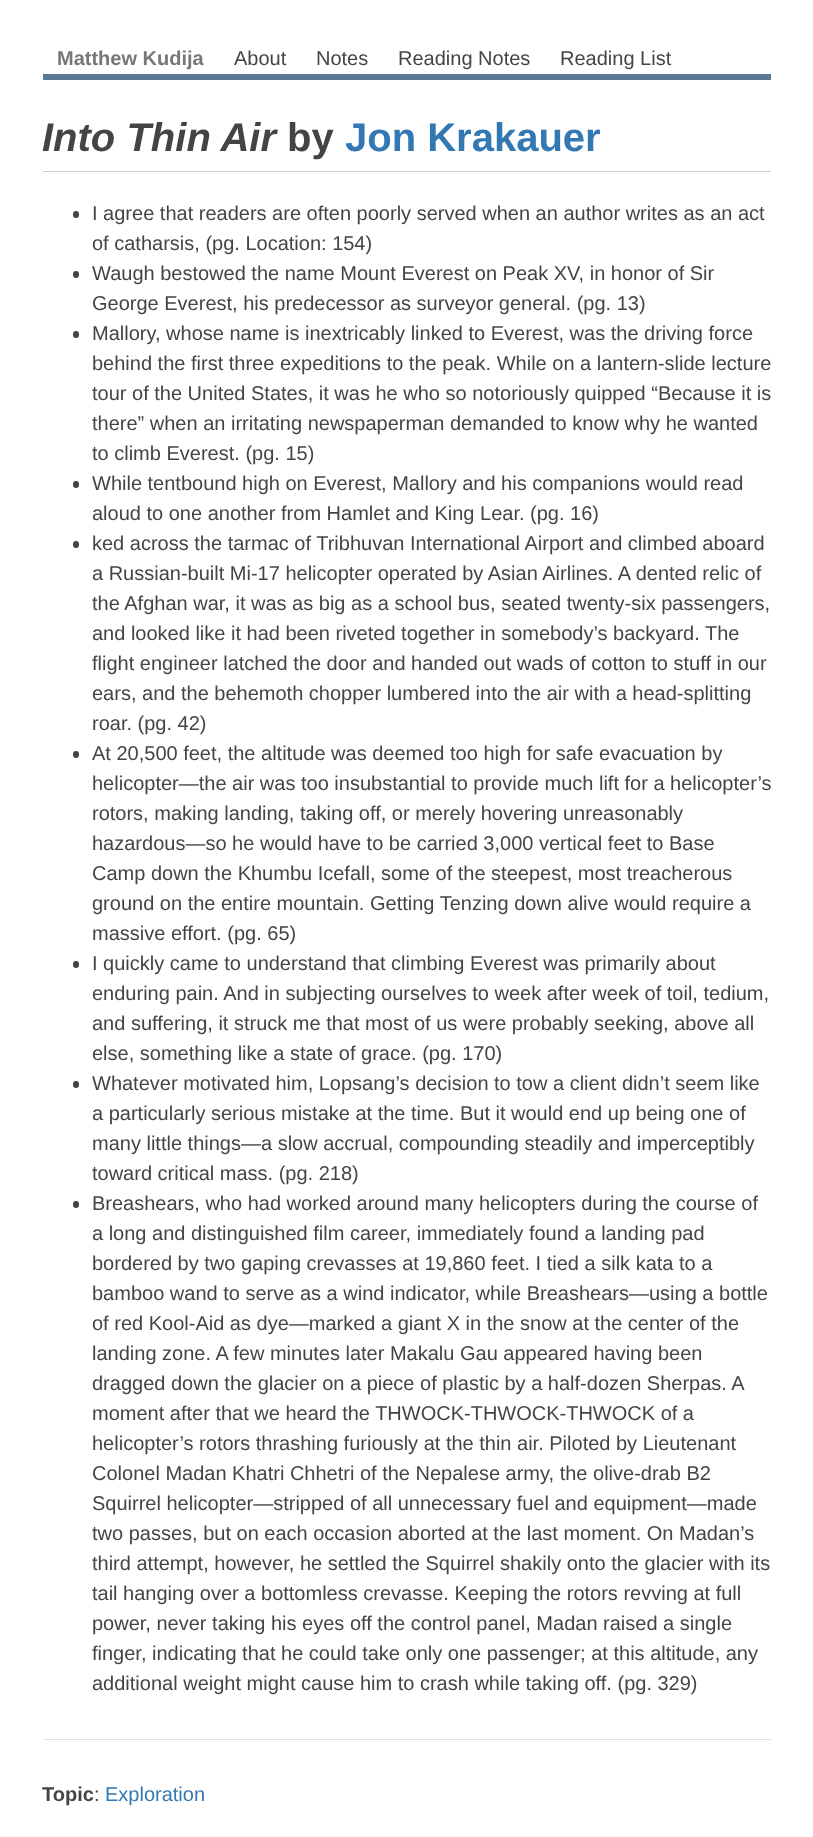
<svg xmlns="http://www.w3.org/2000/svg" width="813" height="1837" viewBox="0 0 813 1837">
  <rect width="100%" height="100%" fill="rgb(255,255,255)"/>
  <rect x="43" y="74" width="728" height="6" fill="rgb(91,120,148)"/>
  <text x="57" y="65" font-family="Liberation Sans" font-size="20" font-weight="bold" fill="rgb(119,119,119)">Matthew Kudija</text>
  <g font-family="Liberation Sans" font-size="20" fill="rgb(68,68,68)">
    <text x="234" y="65">About</text>
    <text x="316" y="65">Notes</text>
    <text x="398" y="65">Reading Notes</text>
    <text x="560" y="65">Reading List</text>
  </g>
  <rect x="43" y="171" width="728" height="1" fill="rgb(204,204,204)"/>
  <text x="42" y="151" font-family="Liberation Sans" font-size="40" font-weight="bold" font-style="italic" fill="rgb(68,68,68)">Into Thin Air</text>
  <text x="287" y="151" font-family="Liberation Sans" font-size="40" font-weight="bold" fill="rgb(68,68,68)">by</text>
  <text x="345" y="151" font-family="Liberation Sans" font-size="40" font-weight="bold" fill="rgb(51,119,179)">Jon Krakauer</text>
  <rect x="73" y="211" width="6" height="7" rx="3" fill="rgb(68,68,68)"/>
  <g font-family="Liberation Sans" font-size="20" fill="rgb(68,68,68)">
    <text>
      <tspan x="92" y="220">I agree that readers are often poorly served when an author writes as an act</tspan>
      <tspan x="92" y="250">of catharsis, (pg. Location: 154)</tspan>
    </text>
  </g>
  <rect x="73" y="271" width="6" height="7" rx="3" fill="rgb(68,68,68)"/>
  <g font-family="Liberation Sans" font-size="20" fill="rgb(68,68,68)">
    <text>
      <tspan x="92" y="280">Waugh bestowed the name Mount Everest on Peak XV, in honor of Sir</tspan>
      <tspan x="92" y="310">George Everest, his predecessor as surveyor general. (pg. 13)</tspan>
    </text>
  </g>
  <rect x="73" y="331" width="6" height="7" rx="3" fill="rgb(68,68,68)"/>
  <g font-family="Liberation Sans" font-size="20" fill="rgb(68,68,68)">
    <text>
      <tspan x="92" y="340">Mallory, whose name is inextricably linked to Everest, was the driving force</tspan>
      <tspan x="92" y="370">behind the first three expeditions to the peak. While on a lantern-slide lecture</tspan>
      <tspan x="92" y="400">tour of the United States, it was he who so notoriously quipped “Because it is</tspan>
      <tspan x="92" y="430">there” when an irritating newspaperman demanded to know why he wanted</tspan>
      <tspan x="92" y="460">to climb Everest. (pg. 15)</tspan>
    </text>
  </g>
  <rect x="73" y="481" width="6" height="7" rx="3" fill="rgb(68,68,68)"/>
  <g font-family="Liberation Sans" font-size="20" fill="rgb(68,68,68)">
    <text>
      <tspan x="92" y="490">While tentbound high on Everest, Mallory and his companions would read</tspan>
      <tspan x="92" y="520">aloud to one another from Hamlet and King Lear. (pg. 16)</tspan>
    </text>
  </g>
  <rect x="73" y="541" width="6" height="7" rx="3" fill="rgb(68,68,68)"/>
  <g font-family="Liberation Sans" font-size="20" fill="rgb(68,68,68)">
    <text>
      <tspan x="92" y="550">ked across the tarmac of Tribhuvan International Airport and climbed aboard</tspan>
      <tspan x="92" y="580">a Russian-built Mi-17 helicopter operated by Asian Airlines. A dented relic of</tspan>
      <tspan x="92" y="610">the Afghan war, it was as big as a school bus, seated twenty-six passengers,</tspan>
      <tspan x="92" y="640">and looked like it had been riveted together in somebody’s backyard. The</tspan>
      <tspan x="92" y="670">flight engineer latched the door and handed out wads of cotton to stuff in our</tspan>
      <tspan x="92" y="700">ears, and the behemoth chopper lumbered into the air with a head-splitting</tspan>
      <tspan x="92" y="730">roar. (pg. 42)</tspan>
    </text>
  </g>
  <rect x="73" y="751" width="6" height="7" rx="3" fill="rgb(68,68,68)"/>
  <g font-family="Liberation Sans" font-size="20" fill="rgb(68,68,68)">
    <text>
      <tspan x="92" y="760">At 20,500 feet, the altitude was deemed too high for safe evacuation by</tspan>
      <tspan x="92" y="790">helicopter—the air was too insubstantial to provide much lift for a helicopter’s</tspan>
      <tspan x="92" y="820">rotors, making landing, taking off, or merely hovering unreasonably</tspan>
      <tspan x="92" y="850">hazardous—so he would have to be carried 3,000 vertical feet to Base</tspan>
      <tspan x="92" y="880">Camp down the Khumbu Icefall, some of the steepest, most treacherous</tspan>
      <tspan x="92" y="910">ground on the entire mountain. Getting Tenzing down alive would require a</tspan>
      <tspan x="92" y="940">massive effort. (pg. 65)</tspan>
    </text>
  </g>
  <rect x="73" y="961" width="6" height="7" rx="3" fill="rgb(68,68,68)"/>
  <g font-family="Liberation Sans" font-size="20" fill="rgb(68,68,68)">
    <text>
      <tspan x="92" y="970">I quickly came to understand that climbing Everest was primarily about</tspan>
      <tspan x="92" y="1000">enduring pain. And in subjecting ourselves to week after week of toil, tedium,</tspan>
      <tspan x="92" y="1030">and suffering, it struck me that most of us were probably seeking, above all</tspan>
      <tspan x="92" y="1060">else, something like a state of grace. (pg. 170)</tspan>
    </text>
  </g>
  <rect x="73" y="1081" width="6" height="7" rx="3" fill="rgb(68,68,68)"/>
  <g font-family="Liberation Sans" font-size="20" fill="rgb(68,68,68)">
    <text>
      <tspan x="92" y="1090">Whatever motivated him, Lopsang’s decision to tow a client didn’t seem like</tspan>
      <tspan x="92" y="1120">a particularly serious mistake at the time. But it would end up being one of</tspan>
      <tspan x="92" y="1150">many little things—a slow accrual, compounding steadily and imperceptibly</tspan>
      <tspan x="92" y="1180">toward critical mass. (pg. 218)</tspan>
    </text>
  </g>
  <rect x="73" y="1201" width="6" height="7" rx="3" fill="rgb(68,68,68)"/>
  <g font-family="Liberation Sans" font-size="20" fill="rgb(68,68,68)">
    <text>
      <tspan x="92" y="1210">Breashears, who had worked around many helicopters during the course of</tspan>
      <tspan x="92" y="1240">a long and distinguished film career, immediately found a landing pad</tspan>
      <tspan x="92" y="1270">bordered by two gaping crevasses at 19,860 feet. I tied a silk kata to a</tspan>
      <tspan x="92" y="1300">bamboo wand to serve as a wind indicator, while Breashears—using a bottle</tspan>
      <tspan x="92" y="1330">of red Kool-Aid as dye—marked a giant X in the snow at the center of the</tspan>
      <tspan x="92" y="1360">landing zone. A few minutes later Makalu Gau appeared having been</tspan>
      <tspan x="92" y="1390">dragged down the glacier on a piece of plastic by a half-dozen Sherpas. A</tspan>
      <tspan x="92" y="1420">moment after that we heard the THWOCK-THWOCK-THWOCK of a</tspan>
      <tspan x="92" y="1450">helicopter’s rotors thrashing furiously at the thin air. Piloted by Lieutenant</tspan>
      <tspan x="92" y="1480">Colonel Madan Khatri Chhetri of the Nepalese army, the olive-drab B2</tspan>
      <tspan x="92" y="1510">Squirrel helicopter—stripped of all unnecessary fuel and equipment—made</tspan>
      <tspan x="92" y="1540">two passes, but on each occasion aborted at the last moment. On Madan’s</tspan>
      <tspan x="92" y="1570">third attempt, however, he settled the Squirrel shakily onto the glacier with its</tspan>
      <tspan x="92" y="1600">tail hanging over a bottomless crevasse. Keeping the rotors revving at full</tspan>
      <tspan x="92" y="1630">power, never taking his eyes off the control panel, Madan raised a single</tspan>
      <tspan x="92" y="1660">finger, indicating that he could take only one passenger; at this altitude, any</tspan>
      <tspan x="92" y="1690">additional weight might cause him to crash while taking off. (pg. 329)</tspan>
    </text>
  </g>
  <rect x="43" y="1739" width="728" height="1" fill="rgb(221,225,227)"/>
  <text x="42" y="1801" font-family="Liberation Sans" font-size="20" font-weight="bold" fill="rgb(68,68,68)">Topic</text>
  <text x="94" y="1801" font-family="Liberation Sans" font-size="20" fill="rgb(68,68,68)">:</text>
  <text x="105" y="1801" font-family="Liberation Sans" font-size="20" fill="rgb(51,119,179)">Exploration</text>
</svg>
